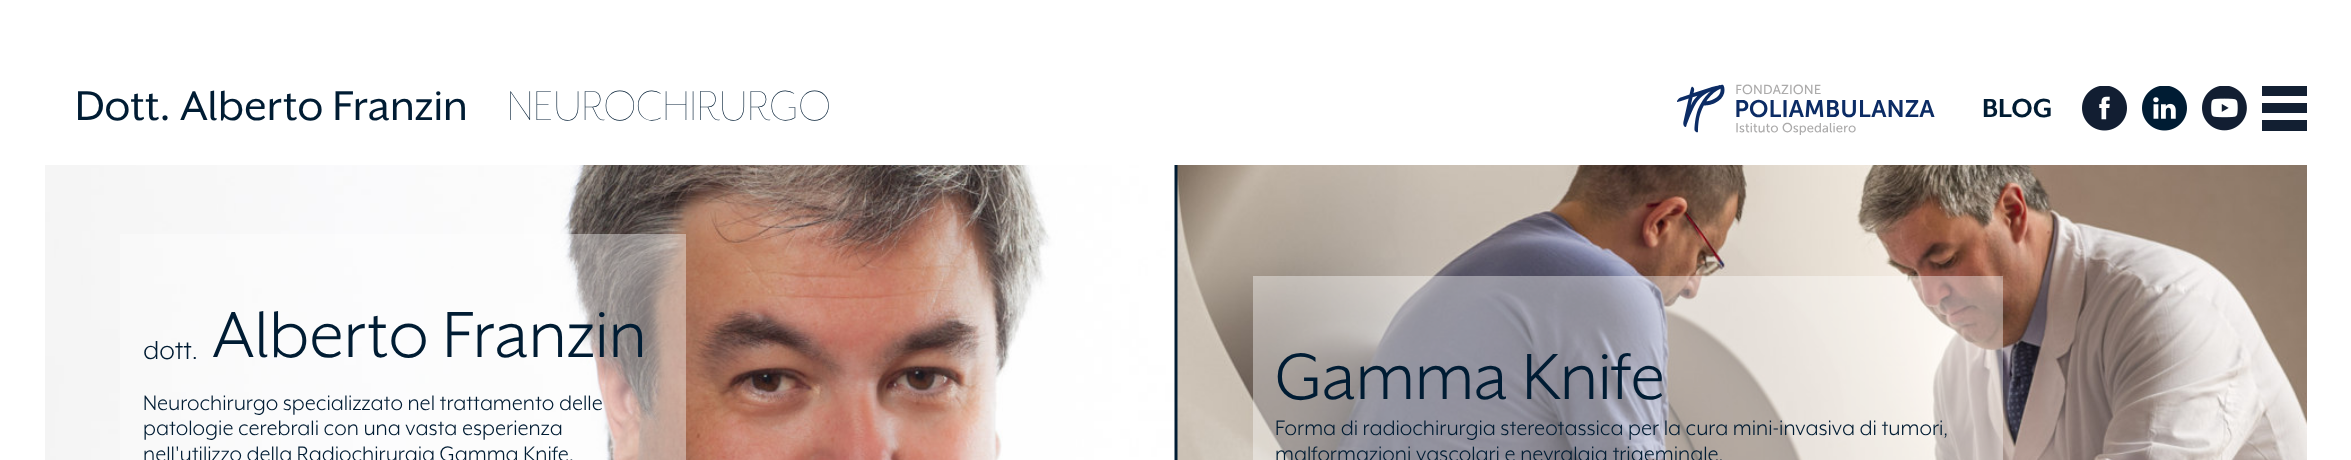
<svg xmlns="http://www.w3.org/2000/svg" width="2351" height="460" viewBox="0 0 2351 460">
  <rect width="100%" height="100%" fill="rgb(255,255,255)"/>
  <text x="75" y="120" font-family="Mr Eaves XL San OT" font-size="48" fill="rgb(0,28,51)">Dott. Alberto Franzin</text>
  <text x="507" y="120" font-family="Mr Eaves XL San OT" font-size="48" font-weight="100" fill="rgb(0,28,51)">NEUROCHIRURGO</text>
  <image x="1677" y="84" width="258" height="51" href="pic1.png"/>
  <text x="1982" y="117" font-family="Mr Eaves XL San OT" font-size="30" font-weight="bold" fill="rgb(0,28,51)">BLOG</text>
  <image x="2082" y="86" width="45" height="45" href="pic2.png"/>
  <image x="2142" y="86" width="45" height="45" href="pic3.png"/>
  <image x="2202" y="86" width="45" height="45" href="pic4.png"/>
  <rect x="2262" y="86" width="45" height="10" fill="rgb(18,31,50)"/>
  <rect x="2262" y="120" width="45" height="11" fill="rgb(18,31,50)"/>
  <rect x="2262" y="103" width="45" height="10" fill="rgb(18,31,50)"/>
  <rect x="1174" y="165" width="4" height="295" fill="rgb(0,28,51)"/>
  <image x="45" y="165" width="1130" height="295" href="pic5.png"/>
  <rect x="120" y="234" width="566" height="226" fill="rgba(255,255,255,0.4)"/>
  <text x="143" y="359" font-family="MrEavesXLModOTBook" font-size="30" fill="rgb(0,28,51)">dott.</text>
  <text x="212" y="357" font-family="'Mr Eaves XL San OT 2'" font-size="75" fill="rgb(0,28,51)">Alberto Franzin</text>
  <g font-family="MrEavesXLModOTBook" font-size="24" fill="rgb(0,28,51)">
    <text>
      <tspan x="143" y="410">Neurochirurgo specializzato nel trattamento delle</tspan>
      <tspan x="143" y="435">patologie cerebrali con una vasta esperienza</tspan>
      <tspan x="143" y="461">nell'utilizzo della Radiochirurgia Gamma Knife.</tspan>
    </text>
  </g>
  <image x="1177" y="165" width="1130" height="295" href="pic6.png"/>
  <rect x="1253" y="276" width="750" height="184" fill="rgba(255,255,255,0.4)"/>
  <text x="1275" y="399" font-family="'Mr Eaves XL San OT 2'" font-size="75" fill="rgb(0,28,51)">Gamma Knife</text>
  <g font-family="MrEavesXLModOTBook" font-size="24" fill="rgb(0,28,51)">
    <text>
      <tspan x="1275" y="435">Forma di radiochirurgia stereotassica per la cura mini-invasiva di tumori,</tspan>
      <tspan x="1275" y="461">malformazioni vascolari e nevralgia trigeminale.</tspan>
    </text>
  </g>
</svg>
